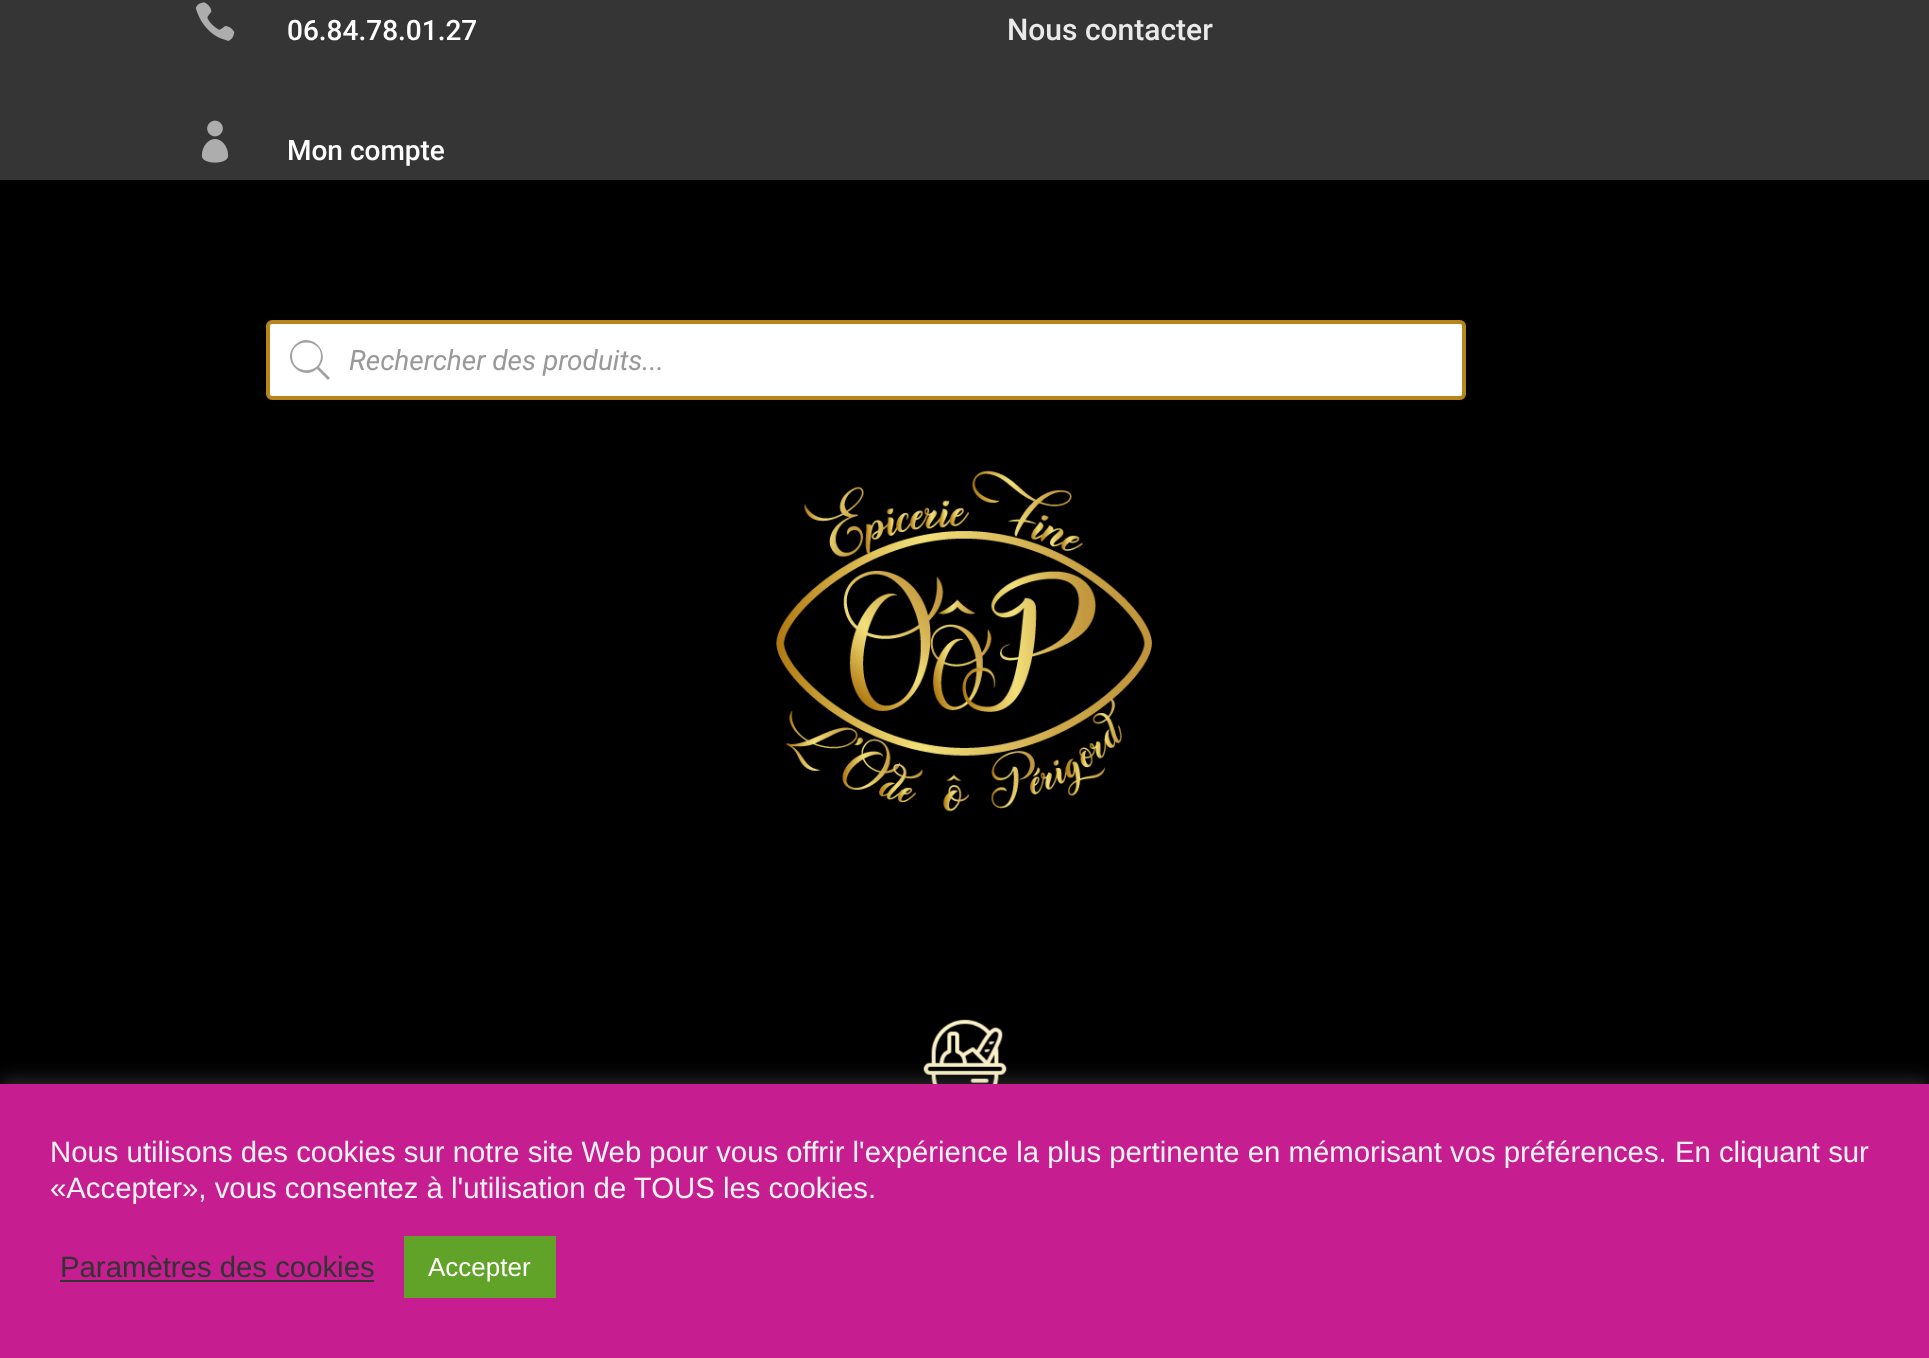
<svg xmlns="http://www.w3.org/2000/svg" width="1929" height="1358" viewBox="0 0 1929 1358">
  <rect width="100%" height="100%" fill="rgb(53,53,53)"/>
  <image x="195" y="2" width="40" height="39" href="pic1.png"/>
  <text x="287" y="40" font-family="Roboto" font-size="28" font-weight="500" fill="rgb(255,255,255)">06.84.78.01.27</text>
  <text x="1007" y="40" font-family="Roboto" font-size="30" font-weight="500" fill="rgb(234,234,234)">Nous contacter</text>
  <image x="201" y="120" width="28" height="43" href="pic2.png"/>
  <text x="287" y="160" font-family="Roboto" font-size="28" font-weight="500" fill="rgb(255,255,255)">Mon compte</text>
  <rect x="0" y="180" width="1929" height="904" fill="rgb(0,0,0)"/>
  <rect x="268" y="322" width="1196" height="76" rx="4" fill="rgb(255,255,255)" stroke="rgb(184,133,29)" stroke-width="4"/>
  <path d="M330 378L319 367C332 352 310 330 295 345C280 360 302 382 317 369L328 380ZM292 356C292 338 321 338 321 356C321 375 292 375 292 356Z" fill="rgb(162,162,162)"/>
  <text x="349" y="370" font-family="Roboto" font-size="28" font-style="italic" fill="rgb(153,153,153)">Rechercher des produits...</text>
  <image x="776" y="470" width="376" height="342" href="pic3.png"/>
  <image x="923" y="1019" width="84" height="65" href="pic4.png"/>
  <rect x="0" y="1082" width="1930" height="274" fill="rgba(172,171,171,0.3)" filter="blur(10px)"/>
  <rect x="0" y="1084" width="1929" height="274" fill="rgb(198,29,145)"/>
  <g font-family="Liberation Sans" font-size="29.33" fill="rgb(242,242,242)">
    <text>
      <tspan x="50" y="1162">Nous utilisons des cookies sur notre site Web pour vous offrir l'expérience la plus pertinente en mémorisant vos préférences. En cliquant sur</tspan>
      <tspan x="50" y="1198">«Accepter», vous consentez à l'utilisation de TOUS les cookies.</tspan>
    </text>
  </g>
  <text x="60" y="1277" font-family="Liberation Sans" font-size="29.33" fill="rgb(51,51,51)">Paramètres des cookies</text>
  <rect x="60" y="1280" width="314" height="2" fill="rgb(51,51,51)"/>
  <rect x="404" y="1236" width="152" height="62" fill="rgb(97,162,41)"/>
  <text x="428" y="1276" font-family="Liberation Sans" font-size="26" fill="rgb(255,255,255)">Accepter</text>
</svg>
